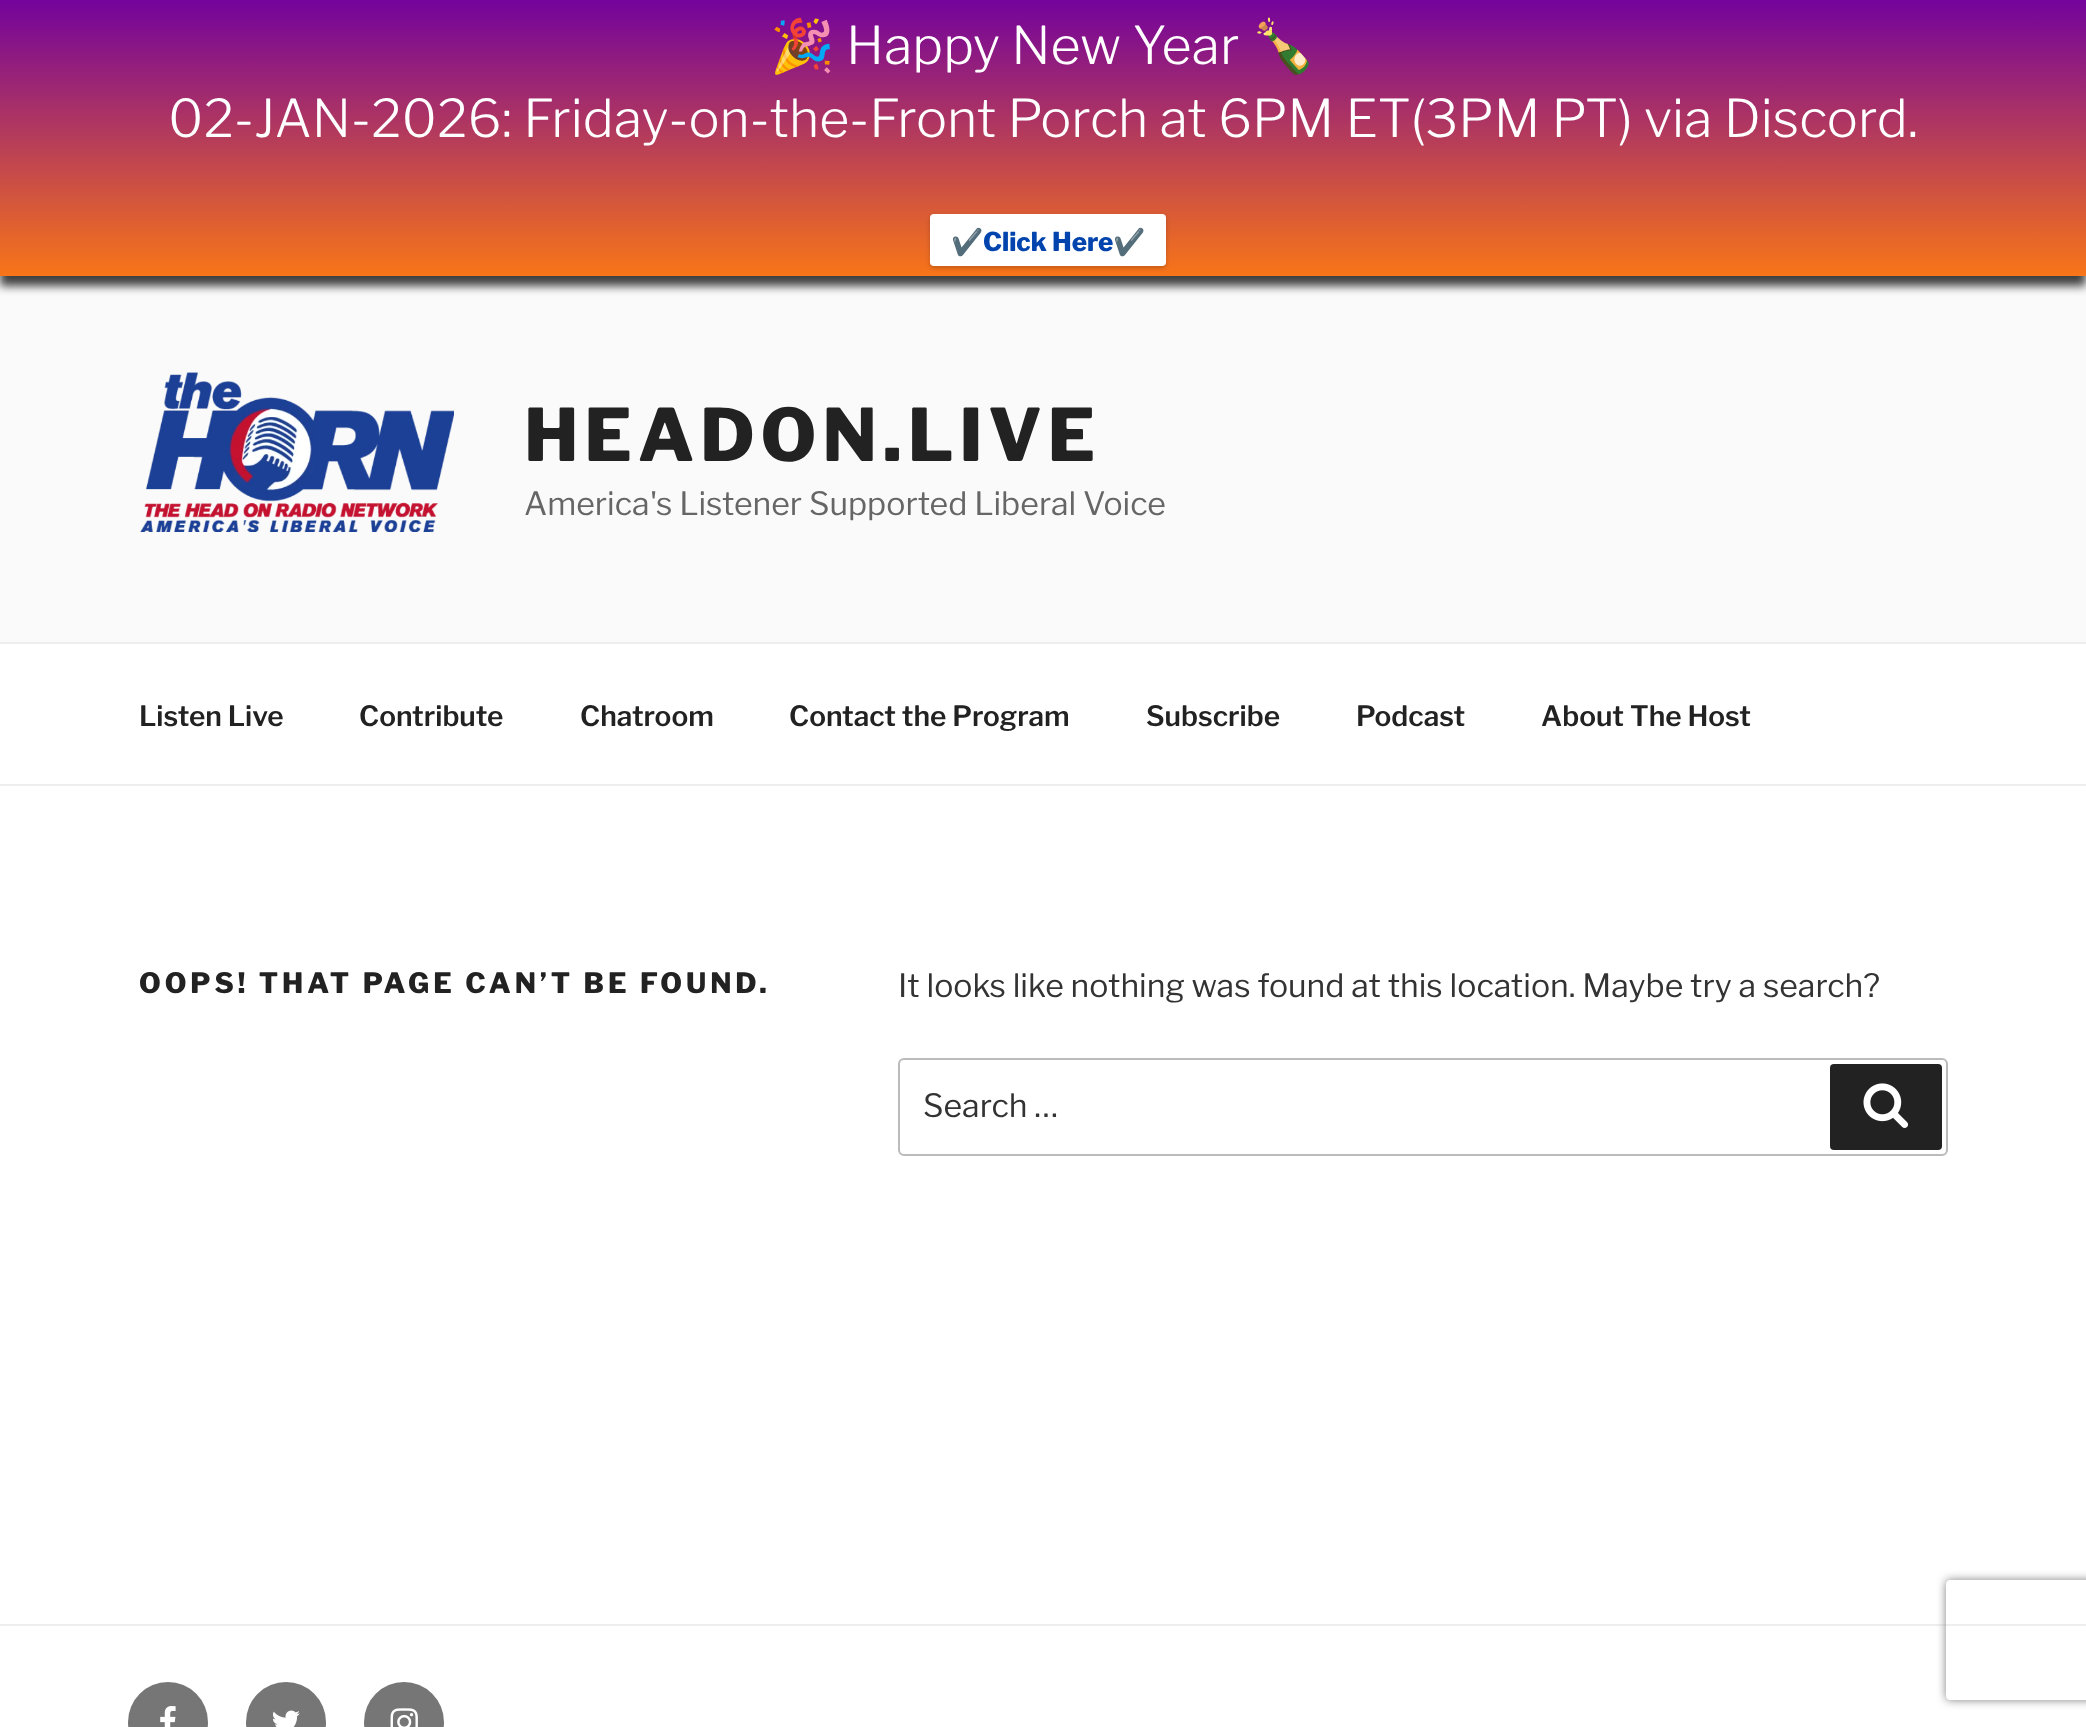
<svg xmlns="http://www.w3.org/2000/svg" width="2086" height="1727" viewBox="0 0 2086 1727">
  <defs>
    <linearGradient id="g1" gradientUnits="userSpaceOnUse" x1="1043" y1="0" x2="1043" y2="276"><stop offset="0" stop-color="rgb(115,3,156)"/><stop offset="1" stop-color="rgb(248,117,24)"/></linearGradient>
    <clipPath id="clip1"><path d="M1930 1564H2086V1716H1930ZM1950 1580H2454C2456 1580 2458 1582 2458 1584V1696C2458 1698 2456 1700 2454 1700H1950C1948 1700 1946 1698 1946 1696V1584C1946 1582 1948 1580 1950 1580Z" clip-rule="evenodd"/></clipPath>
  </defs>
  <rect width="100%" height="100%" fill="rgb(255,255,255)"/>
  <rect x="0" y="276" width="2086" height="366" fill="rgb(250,250,250)"/>
  <rect x="0" y="10" width="2086" height="276" fill="rgba(0,0,0,0.75)" filter="blur(5px)"/>
  <rect x="0" y="0" width="2086" height="276" fill="url(#g1)"/>
  <text x="770" y="64" font-family="Noto Color Emoji" font-size="52" fill="rgb(255,255,255)">🎉</text>
  <text x="846" y="64" font-family="'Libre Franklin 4'" font-size="52" font-weight="100" fill="rgb(255,255,255)">Happy New Year</text>
  <text x="1251" y="64" font-family="Noto Color Emoji" font-size="52" fill="rgb(255,255,255)">🍾</text>
  <text x="168" y="137" font-family="'Libre Franklin 4'" font-size="52" font-weight="100" fill="rgb(255,255,255)">02-JAN-2026: Friday-on-the-Front Porch at 6PM ET(3PM PT) via Discord.</text>
  <rect x="930" y="216" width="236" height="52" rx="4" fill="rgba(0,0,0,0.2)" filter="blur(2px)"/>
  <rect x="930" y="214" width="236" height="52" rx="4" fill="rgb(255,255,255)"/>
  <text x="951" y="251" font-family="Noto Color Emoji" font-size="26" font-weight="bold" fill="rgb(2,68,173)">✔️</text>
  <text x="983" y="251" font-family="Libre Franklin" font-size="26" font-weight="100" fill="rgb(2,68,173)">Click Here</text>
  <text x="1113" y="251" font-family="Noto Color Emoji" font-size="26" font-weight="bold" fill="rgb(2,68,173)">✔️</text>
  <image x="140" y="372" width="314" height="160" href="pic1.png"/>
  <text x="524" y="461" font-family="Libre Franklin" font-size="72" font-weight="100" letter-spacing="5.75" fill="rgb(34,34,34)">HEADON.LIVE</text>
  <text x="524" y="515" font-family="'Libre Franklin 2'" font-size="32" font-weight="100" fill="rgb(102,102,102)">America's Listener Supported Liberal Voice</text>
  <rect x="0" y="642" width="2086" height="2" fill="rgb(238,238,238)"/>
  <rect x="0" y="784" width="2086" height="2" fill="rgb(238,238,238)"/>
  <g font-family="'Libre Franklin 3'" font-size="28" font-weight="100" fill="rgb(34,34,34)">
    <text x="139" y="726">Listen Live</text>
    <text x="359" y="726">Contribute</text>
    <text x="580" y="726">Chatroom</text>
    <text x="789" y="726">Contact the Program</text>
    <text x="1146" y="726">Subscribe</text>
    <text x="1356" y="726">Podcast</text>
    <text x="1541" y="726">About The Host</text>
  </g>
  <text x="139" y="993" font-family="Libre Franklin" font-size="28" font-weight="100" letter-spacing="3.9" fill="rgb(34,34,34)">OOPS! THAT PAGE CAN’T BE FOUND.</text>
  <text x="898" y="997" font-family="'Libre Franklin 2'" font-size="32" font-weight="100" fill="rgb(51,51,51)">It looks like nothing was found at this location. Maybe try a search?</text>
  <rect x="899" y="1059" width="1048" height="96" rx="5" fill="none" stroke="rgb(187,187,187)" stroke-width="2"/>
  <text x="923" y="1117" font-family="'Libre Franklin 2'" font-size="32" font-weight="100" fill="rgb(51,51,51)">Search …</text>
  <rect x="1830" y="1064" width="112" height="86" rx="4" fill="rgb(34,34,34)"/>
  <image x="1863" y="1083" width="46" height="45" href="pic2.png"/>
  <rect x="0" y="1624" width="2086" height="2" fill="rgb(238,238,238)"/>
  <circle cx="168" cy="1722" r="40" fill="rgb(118,118,118)"/>
  <image x="160" y="1706" width="16" height="21" href="pic3.png"/>
  <circle cx="286" cy="1722" r="40" fill="rgb(118,118,118)"/>
  <image x="273" y="1710" width="27" height="17" href="pic4.png"/>
  <circle cx="404" cy="1722" r="40" fill="rgb(118,118,118)"/>
  <image x="390" y="1708" width="28" height="19" href="pic5.png"/>
  <g clip-path="url(#clip1)">
    <rect x="1946" y="1580" width="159" height="120" rx="4" fill="rgb(128,128,128)" filter="blur(5px)"/>
  </g>
</svg>
